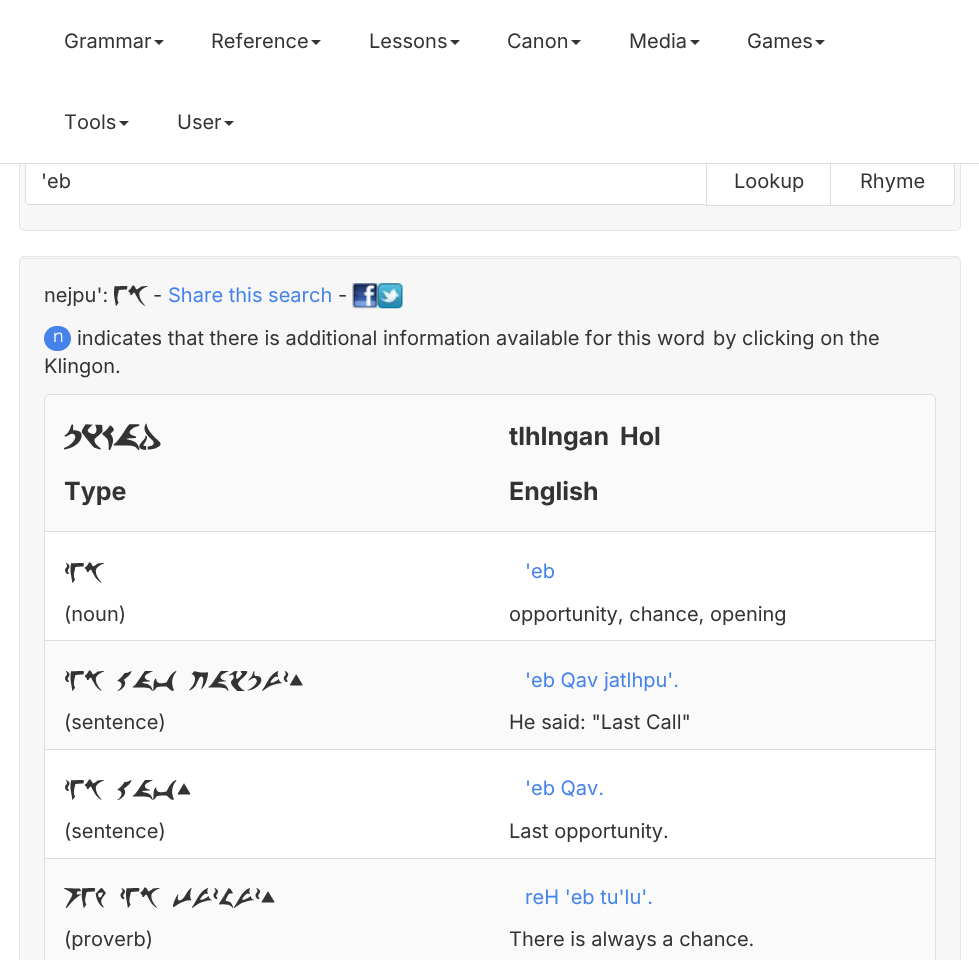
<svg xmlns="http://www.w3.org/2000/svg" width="979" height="960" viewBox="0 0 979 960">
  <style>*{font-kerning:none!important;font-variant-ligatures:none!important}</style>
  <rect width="100%" height="100%" fill="rgb(255,255,255)"/>
  <rect x="19.5" y="130.5" width="941" height="100" rx="4.5" fill="rgb(247,247,247)" stroke="rgb(229,229,229)"/>
  <path d="M30 155.5H707.5V204.5H30C27.5 204.5 25.5 202.5 25.5 200V160C25.5 157.5 27.5 155.5 30 155.5Z" fill="rgb(255,255,255)" stroke="rgb(221,221,221)"/>
  <rect x="707" y="164" width="123" height="41" fill="rgb(255,255,255)"/>
  <rect x="706.5" y="155.5" width="124" height="50" fill="none" stroke="rgb(221,221,221)"/>
  <path d="M830.5 155.5H950C952.5 155.5 954.5 157.5 954.5 160V201C954.5 203.5 952.5 205.5 950 205.5H830.5Z" fill="rgb(255,255,255)" stroke="rgb(221,221,221)"/>
  <rect x="19" y="130" width="942" height="33" fill="rgb(255,255,255)"/>
  <rect x="0" y="163" width="979" height="1" fill="rgb(221,221,221)"/>
  <text x="64" y="48" font-family="Inter" font-size="20" fill="rgb(51,51,51)">Grammar</text>
  <path d="M154 40H164L159 45Z" fill="rgb(51,51,51)"/>
  <text x="211" y="48" font-family="Inter" font-size="20" fill="rgb(51,51,51)">Reference</text>
  <path d="M311 40H321L316 45Z" fill="rgb(51,51,51)"/>
  <text x="369" y="48" font-family="Inter" font-size="20" fill="rgb(51,51,51)">Lessons</text>
  <path d="M450 40H460L455 45Z" fill="rgb(51,51,51)"/>
  <text x="507" y="48" font-family="Inter" font-size="20" fill="rgb(51,51,51)">Canon</text>
  <path d="M571 40H581L576 45Z" fill="rgb(51,51,51)"/>
  <text x="629" y="48" font-family="Inter" font-size="20" fill="rgb(51,51,51)">Media</text>
  <path d="M690 40H700L695 45Z" fill="rgb(51,51,51)"/>
  <text x="747" y="48" font-family="Inter" font-size="20" fill="rgb(51,51,51)">Games</text>
  <path d="M815 40H825L820 45Z" fill="rgb(51,51,51)"/>
  <text x="64" y="129" font-family="Inter" font-size="20" fill="rgb(51,51,51)">Tools</text>
  <path d="M119 121H129L124 126Z" fill="rgb(51,51,51)"/>
  <text x="177" y="129" font-family="Inter" font-size="20" fill="rgb(51,51,51)">User</text>
  <path d="M224 121H234L229 126Z" fill="rgb(51,51,51)"/>
  <g font-family="Inter" font-size="20" fill="rgb(51,51,51)">
    <text x="41" y="188">'eb</text>
    <text x="734" y="188">Lookup</text>
    <text x="860" y="188">Rhyme</text>
  </g>
  <rect x="19" y="256" width="942" height="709" rx="5" fill="rgb(247,247,247)"/>
  <path d="M24 259H956C958 259 960 260 960 262C960 260 958 258 956 258H24C22 258 20 260 20 262C20 260 22 259 24 259Z" fill="rgb(235,235,235)"/>
  <rect x="19.5" y="256.5" width="941" height="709" rx="4.5" fill="none" stroke="rgb(229,229,229)"/>
  <text x="44" y="302" font-family="Inter" font-size="20" fill="rgb(51,51,51)">nejpu':</text>
  <text x="114" y="302" font-family="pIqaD" font-size="20" font-weight="500" fill="rgb(51,51,51)">'eb</text>
  <text x="153" y="302" font-family="Inter" font-size="20" fill="rgb(51,51,51)">-</text>
  <text x="168" y="302" font-family="Inter" font-size="20" fill="rgb(69,130,236)">Share this search</text>
  <text x="338" y="302" font-family="Inter" font-size="20" fill="rgb(51,51,51)">-</text>
  <image x="352" y="283" width="26" height="26" href="pic1.png"/>
  <image x="377" y="283" width="26" height="26" href="pic2.png"/>
  <rect x="44" y="326" width="27" height="25" rx="12.5" fill="rgb(69,130,236)"/>
  <text x="53" y="342" font-family="Raleway" font-size="18" fill="rgb(255,255,255)">n</text>
  <g font-family="Inter" font-size="20" fill="rgb(51,51,51)">
    <text x="77" y="345">indicates that there is additional information available for this word</text>
    <text x="713" y="345">by clicking on the</text>
    <text x="44" y="373">Klingon.</text>
  </g>
  <path d="M49 394.5H931C933.5 394.5 935.5 396.5 935.5 399V532.5H44.5V399C44.5 396.5 46.5 394.5 49 394.5Z" fill="rgb(250,250,250)" stroke="rgb(221,221,221)"/>
  <text x="64" y="445" font-family="pIqaD" font-size="25" font-weight="bold" fill="rgb(51,51,51)">pikad</text>
  <g font-family="Inter" font-size="25" font-weight="bold" fill="rgb(51,51,51)">
    <text x="509" y="445">tlhIngan</text>
    <text x="620" y="445">Hol</text>
    <text x="64" y="500">Type</text>
    <text x="509" y="500">English</text>
  </g>
  <rect x="44.5" y="531.5" width="891" height="109" fill="rgb(255,255,255)" stroke="rgb(221,221,221)"/>
  <text x="64" y="579" font-family="pIqaD" font-size="20" font-weight="500" fill="rgb(51,51,51)">zeb</text>
  <text x="525" y="578" font-family="Inter" font-size="20" fill="rgb(69,130,236)">'eb</text>
  <g font-family="Inter" font-size="20" fill="rgb(51,51,51)">
    <text x="64" y="621">(noun)</text>
    <text x="509" y="621">opportunity, chance, opening</text>
  </g>
  <rect x="44.5" y="640.5" width="891" height="109" fill="rgb(250,250,250)" stroke="rgb(221,221,221)"/>
  <text x="64" y="687" word-spacing="-1" font-family="pIqaD" font-size="20" font-weight="500" fill="rgb(51,51,51)">zeb qav</text>
  <text x="189" y="687" word-spacing="-1" font-family="pIqaD" font-size="20" font-weight="500" fill="rgb(51,51,51)">jaxpuz.</text>
  <text x="525" y="687" font-family="Inter" font-size="20" fill="rgb(69,130,236)">'eb Qav jatlhpu'.</text>
  <g font-family="Inter" font-size="20" fill="rgb(51,51,51)">
    <text x="64" y="729">(sentence)</text>
    <text x="509" y="729">He said: "Last Call"</text>
  </g>
  <rect x="44.5" y="749.5" width="891" height="109" fill="rgb(255,255,255)" stroke="rgb(221,221,221)"/>
  <text x="64" y="796" word-spacing="-1" font-family="pIqaD" font-size="20" font-weight="500" fill="rgb(51,51,51)">zeb qav.</text>
  <text x="525" y="795" font-family="Inter" font-size="20" fill="rgb(69,130,236)">'eb Qav.</text>
  <g font-family="Inter" font-size="20" fill="rgb(51,51,51)">
    <text x="64" y="838">(sentence)</text>
    <text x="509" y="838">Last opportunity.</text>
  </g>
  <rect x="44.5" y="858.5" width="891" height="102" fill="rgb(250,250,250)" stroke="rgb(221,221,221)"/>
  <text x="64" y="904" word-spacing="-1" font-family="pIqaD" font-size="20" font-weight="500" fill="rgb(51,51,51)">reh zeb tuzluz.</text>
  <text x="525" y="904" font-family="Inter" font-size="20" fill="rgb(69,130,236)">reH 'eb tu'lu'.</text>
  <g font-family="Inter" font-size="20" fill="rgb(51,51,51)">
    <text x="64" y="946">(proverb)</text>
    <text x="509" y="946">There is always a chance.</text>
  </g>
</svg>
